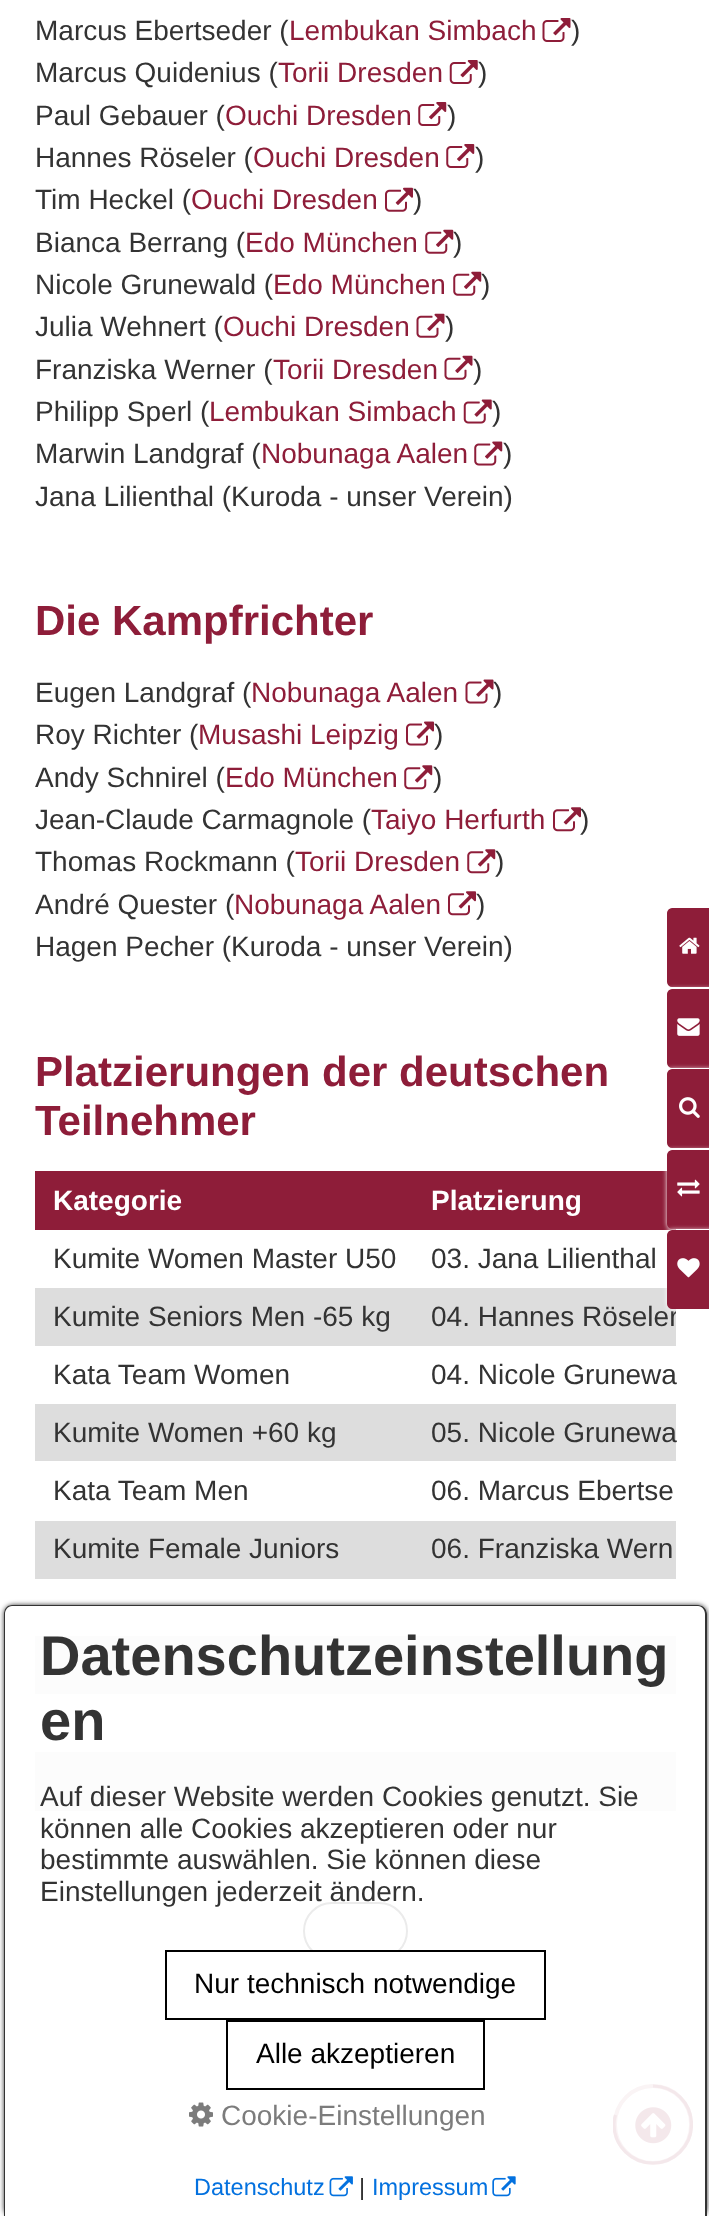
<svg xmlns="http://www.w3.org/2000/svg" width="709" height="2216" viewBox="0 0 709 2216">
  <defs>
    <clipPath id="clip1"><rect x="35" y="1171" width="641" height="640"/></clipPath>
    <clipPath id="clip2"><rect x="613" y="2084" width="80" height="81"/></clipPath>
    <clipPath id="clip3"><path d="M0 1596H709V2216H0ZM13 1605H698C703 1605 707 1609 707 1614V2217H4V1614C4 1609 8 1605 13 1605Z" clip-rule="evenodd"/></clipPath>
  </defs>
  <rect width="100%" height="100%" fill="rgb(255,255,255)"/>
  <text x="35" y="40" font-family="Liberation Sans" font-size="28" fill="rgb(51,51,51)">Marcus Ebertseder (</text>
  <text x="289" y="40" font-family="Liberation Sans" font-size="28" fill="rgb(142,29,57)">Lembukan Simbach</text>
  <image x="542" y="18" width="29" height="24" href="pic1.png"/>
  <g font-family="Liberation Sans" font-size="28" fill="rgb(51,51,51)">
    <text x="571" y="40">)</text>
    <text x="35" y="82">Marcus Quidenius (</text>
  </g>
  <text x="278" y="82" font-family="Liberation Sans" font-size="28" fill="rgb(142,29,57)">Torii Dresden</text>
  <image x="449" y="60" width="29" height="24" href="pic2.png"/>
  <g font-family="Liberation Sans" font-size="28" fill="rgb(51,51,51)">
    <text x="478" y="82">)</text>
    <text x="35" y="125">Paul Gebauer (</text>
  </g>
  <text x="225" y="125" font-family="Liberation Sans" font-size="28" fill="rgb(142,29,57)">Ouchi Dresden</text>
  <image x="418" y="102" width="29" height="24" href="pic3.png"/>
  <g font-family="Liberation Sans" font-size="28" fill="rgb(51,51,51)">
    <text x="447" y="125">)</text>
    <text x="35" y="167">Hannes Röseler (</text>
  </g>
  <text x="253" y="167" font-family="Liberation Sans" font-size="28" fill="rgb(142,29,57)">Ouchi Dresden</text>
  <image x="446" y="144" width="29" height="24" href="pic3.png"/>
  <g font-family="Liberation Sans" font-size="28" fill="rgb(51,51,51)">
    <text x="475" y="167">)</text>
    <text x="35" y="209">Tim Heckel (</text>
  </g>
  <text x="191" y="209" font-family="Liberation Sans" font-size="28" fill="rgb(142,29,57)">Ouchi Dresden</text>
  <image x="385" y="187" width="28" height="25" href="pic4.png"/>
  <g font-family="Liberation Sans" font-size="28" fill="rgb(51,51,51)">
    <text x="413" y="209">)</text>
    <text x="35" y="252">Bianca Berrang (</text>
  </g>
  <text x="245" y="252" font-family="Liberation Sans" font-size="28" fill="rgb(142,29,57)">Edo München</text>
  <image x="425" y="229" width="29" height="25" href="pic5.png"/>
  <g font-family="Liberation Sans" font-size="28" fill="rgb(51,51,51)">
    <text x="453" y="252">)</text>
    <text x="35" y="294">Nicole Grunewald (</text>
  </g>
  <text x="273" y="294" font-family="Liberation Sans" font-size="28" fill="rgb(142,29,57)">Edo München</text>
  <image x="453" y="271" width="29" height="25" href="pic5.png"/>
  <g font-family="Liberation Sans" font-size="28" fill="rgb(51,51,51)">
    <text x="481" y="294">)</text>
    <text x="35" y="336">Julia Wehnert (</text>
  </g>
  <text x="223" y="336" font-family="Liberation Sans" font-size="28" fill="rgb(142,29,57)">Ouchi Dresden</text>
  <image x="416" y="313" width="29" height="25" href="pic6.png"/>
  <g font-family="Liberation Sans" font-size="28" fill="rgb(51,51,51)">
    <text x="445" y="336">)</text>
    <text x="35" y="379">Franziska Werner (</text>
  </g>
  <text x="273" y="379" font-family="Liberation Sans" font-size="28" fill="rgb(142,29,57)">Torii Dresden</text>
  <image x="444" y="355" width="29" height="25" href="pic6.png"/>
  <g font-family="Liberation Sans" font-size="28" fill="rgb(51,51,51)">
    <text x="473" y="379">)</text>
    <text x="35" y="421">Philipp Sperl (</text>
  </g>
  <text x="209" y="421" font-family="Liberation Sans" font-size="28" fill="rgb(142,29,57)">Lembukan Simbach</text>
  <image x="463" y="399" width="29" height="25" href="pic7.png"/>
  <g font-family="Liberation Sans" font-size="28" fill="rgb(51,51,51)">
    <text x="492" y="421">)</text>
    <text x="35" y="463">Marwin Landgraf (</text>
  </g>
  <text x="261" y="463" font-family="Liberation Sans" font-size="28" fill="rgb(142,29,57)">Nobunaga Aalen</text>
  <image x="474" y="441" width="29" height="25" href="pic8.png"/>
  <g font-family="Liberation Sans" font-size="28" fill="rgb(51,51,51)">
    <text x="503" y="463">)</text>
    <text x="35" y="506">Jana Lilienthal (Kuroda - unser Verein)</text>
  </g>
  <text x="35" y="635" font-family="Liberation Sans" font-size="42" font-weight="bold" fill="rgb(142,29,57)">Die Kampfrichter</text>
  <text x="35" y="702" font-family="Liberation Sans" font-size="28" fill="rgb(51,51,51)">Eugen Landgraf (</text>
  <text x="251" y="702" font-family="Liberation Sans" font-size="28" fill="rgb(142,29,57)">Nobunaga Aalen</text>
  <image x="465" y="679" width="29" height="25" href="pic9.png"/>
  <g font-family="Liberation Sans" font-size="28" fill="rgb(51,51,51)">
    <text x="493" y="702">)</text>
    <text x="35" y="744">Roy Richter (</text>
  </g>
  <text x="198" y="744" font-family="Liberation Sans" font-size="28" fill="rgb(142,29,57)">Musashi Leipzig</text>
  <image x="406" y="721" width="28" height="25" href="pic10.png"/>
  <g font-family="Liberation Sans" font-size="28" fill="rgb(51,51,51)">
    <text x="434" y="744">)</text>
    <text x="35" y="787">Andy Schnirel (</text>
  </g>
  <text x="225" y="787" font-family="Liberation Sans" font-size="28" fill="rgb(142,29,57)">Edo München</text>
  <image x="404" y="765" width="29" height="25" href="pic11.png"/>
  <g font-family="Liberation Sans" font-size="28" fill="rgb(51,51,51)">
    <text x="433" y="787">)</text>
    <text x="35" y="829">Jean-Claude Carmagnole (</text>
  </g>
  <text x="371" y="829" font-family="Liberation Sans" font-size="28" fill="rgb(142,29,57)">Taiyo Herfurth</text>
  <image x="553" y="807" width="28" height="25" href="pic12.png"/>
  <g font-family="Liberation Sans" font-size="28" fill="rgb(51,51,51)">
    <text x="580" y="829">)</text>
    <text x="35" y="871">Thomas Rockmann (</text>
  </g>
  <text x="295" y="871" font-family="Liberation Sans" font-size="28" fill="rgb(142,29,57)">Torii Dresden</text>
  <image x="467" y="849" width="29" height="25" href="pic11.png"/>
  <g font-family="Liberation Sans" font-size="28" fill="rgb(51,51,51)">
    <text x="495" y="871">)</text>
    <text x="35" y="914">André Quester (</text>
  </g>
  <text x="234" y="914" font-family="Liberation Sans" font-size="28" fill="rgb(142,29,57)">Nobunaga Aalen</text>
  <image x="448" y="891" width="28" height="25" href="pic12.png"/>
  <g font-family="Liberation Sans" font-size="28" fill="rgb(51,51,51)">
    <text x="476" y="914">)</text>
    <text x="35" y="956">Hagen Pecher (Kuroda - unser Verein)</text>
  </g>
  <g font-family="Liberation Sans" font-size="42" font-weight="bold" fill="rgb(142,29,57)">
    <text>
      <tspan x="35" y="1086">Platzierungen der deutschen</tspan>
      <tspan x="35" y="1135">Teilnehmer</tspan>
    </text>
  </g>
  <rect x="35" y="1171" width="641" height="59" fill="rgb(142,29,57)"/>
  <g font-family="Liberation Sans" font-size="28" font-weight="bold" fill="rgb(255,255,255)">
    <text x="53" y="1210">Kategorie</text>
    <text x="431" y="1210">Platzierung</text>
  </g>
  <g font-family="Liberation Sans" font-size="28" fill="rgb(51,51,51)">
    <text x="53" y="1268">Kumite Women Master U50</text>
    <text x="431" y="1268">03. Jana Lilienthal</text>
  </g>
  <rect x="35" y="1288" width="641" height="58" fill="rgb(221,221,221)"/>
  <text x="53" y="1326" font-family="Liberation Sans" font-size="28" fill="rgb(51,51,51)">Kumite Seniors Men -65 kg</text>
  <g clip-path="url(#clip1)">
    <text x="431" y="1326" font-family="Liberation Sans" font-size="28" fill="rgb(51,51,51)">04. Hannes Röseler</text>
  </g>
  <g font-family="Liberation Sans" font-size="28" fill="rgb(51,51,51)">
    <text x="53" y="1384">Kata Team Women</text>
    <text x="431" y="1384">04. Nicole Grunewa</text>
  </g>
  <rect x="35" y="1404" width="641" height="57" fill="rgb(221,221,221)"/>
  <g font-family="Liberation Sans" font-size="28" fill="rgb(51,51,51)">
    <text x="53" y="1442">Kumite Women +60 kg</text>
    <text x="431" y="1442">05. Nicole Grunewa</text>
    <text x="53" y="1500">Kata Team Men</text>
    <text x="431" y="1500">06. Marcus Ebertse</text>
  </g>
  <rect x="35" y="1521" width="641" height="58" fill="rgb(221,221,221)"/>
  <g font-family="Liberation Sans" font-size="28" fill="rgb(51,51,51)">
    <text x="53" y="1558">Kumite Female Juniors</text>
    <text x="431" y="1558">06. Franziska Wern</text>
  </g>
  <rect x="35" y="1636" width="641" height="58" fill="rgb(221,221,221)"/>
  <rect x="35" y="1752" width="641" height="59" fill="rgb(221,221,221)"/>
  <rect x="304" y="1903" width="103" height="56" rx="28" fill="none" stroke="rgb(51,51,51)" stroke-width="2"/>
  <path d="M672 909H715V986H672C670 986 668 984 668 982V913C668 911 670 909 672 909Z" fill="rgb(142,29,57)" stroke="rgb(142,29,57)" stroke-width="2"/>
  <image x="679" y="937" width="21" height="17" href="pic13.png"/>
  <rect x="667" y="989" width="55" height="79" rx="5" fill="rgb(255,255,255)" filter="blur(2.5px)"/>
  <path d="M672 990H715V1067H672C670 1067 668 1065 668 1063V994C668 992 670 990 672 990Z" fill="rgb(142,29,57)" stroke="rgb(142,29,57)" stroke-width="2"/>
  <image x="677" y="1018" width="23" height="18" href="pic14.png"/>
  <rect x="667" y="1069" width="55" height="79" rx="5" fill="rgb(255,255,255)" filter="blur(2.5px)"/>
  <path d="M672 1070H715V1147H672C670 1147 668 1145 668 1143V1074C668 1072 670 1070 672 1070Z" fill="rgb(142,29,57)" stroke="rgb(142,29,57)" stroke-width="2"/>
  <image x="679" y="1097" width="21" height="21" href="pic15.png"/>
  <rect x="667" y="1150" width="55" height="79" rx="5" fill="rgb(255,255,255)" filter="blur(2.5px)"/>
  <path d="M672 1151H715V1228H672C670 1228 668 1226 668 1224V1155C668 1153 670 1151 672 1151Z" fill="rgb(142,29,57)" stroke="rgb(142,29,57)" stroke-width="2"/>
  <image x="677" y="1179" width="23" height="18" href="pic16.png"/>
  <rect x="667" y="1230" width="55" height="79" rx="5" fill="rgb(255,255,255)" filter="blur(2.5px)"/>
  <path d="M672 1231H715V1308H672C670 1308 668 1306 668 1304V1235C668 1233 670 1231 672 1231Z" fill="rgb(142,29,57)" stroke="rgb(142,29,57)" stroke-width="2"/>
  <image x="677" y="1258" width="23" height="20" href="pic17.png"/>
  <rect x="615" y="2086" width="76" height="77" rx="38" fill="none" stroke="rgb(197,140,154)" stroke-width="4"/>
  <g clip-path="url(#clip2)">
    <path d="M653 2086C674 2086 691.5 2103 691.5 2124.5C691.5 2146 674 2163 653 2163C631.5 2163 614 2146 614 2124.5C614 2121 614.5 2118 615.5 2115" fill="none" stroke="rgb(142,29,57)" stroke-width="3.2"/>
  </g>
  <image x="635" y="2107" width="37" height="37" href="pic21.png"/>
  <g clip-path="url(#clip3)">
    <rect x="4" y="1605" width="703" height="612" rx="9" fill="rgba(0,0,0,0.8)" filter="blur(2.5px)"/>
  </g>
  <path d="M13 1605H698C703 1605 707 1609 707 1614V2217H4V1614C4 1609 8 1605 13 1605Z" fill="rgba(255,255,255,0.9)"/>
  <path d="M12 1605H698C703 1605 707 1609 707 1614V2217H4V1614C4 1609 7 1605 12 1605ZM12 1606H698C702 1606 705 1610 705 1614V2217H5V1614C5 1610 8 1606 12 1606Z" fill="rgb(51,51,51)" fill-rule="evenodd"/>
  <g font-family="Liberation Sans" font-size="56" font-weight="bold" fill="rgb(51,51,51)">
    <text>
      <tspan x="40" y="1675">Datenschutzeinstellung</tspan>
      <tspan x="40" y="1740">en</tspan>
    </text>
  </g>
  <g font-family="Liberation Sans" font-size="28" fill="rgb(51,51,51)">
    <text>
      <tspan x="40" y="1806">Auf dieser Website werden Cookies genutzt. Sie</tspan>
      <tspan x="40" y="1838">können alle Cookies akzeptieren oder nur</tspan>
      <tspan x="40" y="1869">bestimmte auswählen. Sie können diese</tspan>
      <tspan x="40" y="1901">Einstellungen jederzeit ändern.</tspan>
    </text>
  </g>
  <rect x="312" y="1952" width="87" height="8" fill="rgb(255,255,255)"/>
  <rect x="166" y="1951" width="379" height="68" fill="none" stroke="rgb(0,0,0)" stroke-width="2"/>
  <text x="194" y="1993" font-family="Liberation Sans" font-size="28" fill="rgb(0,0,0)">Nur technisch notwendige</text>
  <rect x="227" y="2021" width="257" height="68" fill="none" stroke="rgb(0,0,0)" stroke-width="2"/>
  <text x="256" y="2063" font-family="Liberation Sans" font-size="28" fill="rgb(0,0,0)">Alle akzeptieren</text>
  <image x="189" y="2102" width="24" height="25" href="pic18.png"/>
  <text x="221" y="2125" font-family="Liberation Sans" font-size="28" fill="rgb(124,124,124)">Cookie-Einstellungen</text>
  <text x="194" y="2195" font-family="Liberation Sans" font-size="23.5" fill="rgb(3,113,223)">Datenschutz</text>
  <image x="329" y="2176" width="24" height="21" href="pic19.png"/>
  <text x="359" y="2195" font-family="Liberation Sans" font-size="23.5" fill="rgb(51,51,51)">|</text>
  <text x="372" y="2195" font-family="Liberation Sans" font-size="23.5" fill="rgb(3,113,223)">Impressum</text>
  <image x="492" y="2176" width="24" height="21" href="pic20.png"/>
</svg>
